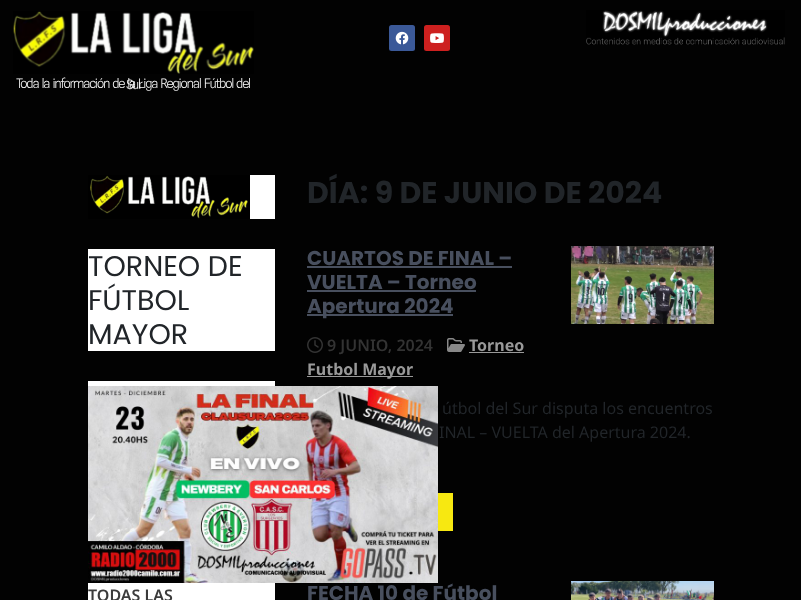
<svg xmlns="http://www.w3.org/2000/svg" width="801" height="600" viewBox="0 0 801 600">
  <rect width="100%" height="100%" fill="rgb(2,2,2)"/>
  <rect x="389" y="25" width="26" height="26" rx="2.5" fill="rgb(59,89,152)"/>
  <image x="395" y="31" width="14" height="14" href="pic1.png"/>
  <rect x="424" y="25" width="26" height="26" rx="2.5" fill="rgb(205,32,31)"/>
  <image x="430" y="33" width="14" height="10" href="pic2.png"/>
  <image x="586" y="10" width="199" height="35" href="pic3.png"/>
  <image x="13" y="11" width="241" height="63" href="pic4.png"/>
  <g font-family="Spline Sans" font-size="13" font-weight="300" letter-spacing="-1.2" fill="rgb(255,255,255)">
    <text x="16" y="88" word-spacing="2">Toda la información de la Liga Regional Fútbol del</text>
    <text x="126" y="89">Sur</text>
  </g>
  <rect x="250" y="175" width="25" height="44" fill="rgb(255,255,255)"/>
  <image x="88" y="175" width="162" height="44" href="pic5.png"/>
  <rect x="88" y="249" width="187" height="102" fill="rgb(255,255,255)"/>
  <g font-family="Poppins" font-size="28.5" fill="rgb(33,37,41)">
    <text>
      <tspan x="88" y="276">TORNEO DE</tspan>
      <tspan x="88" y="310">FÚTBOL</tspan>
      <tspan x="88" y="344">MAYOR</tspan>
    </text>
  </g>
  <rect x="88" y="381" width="187" height="219" fill="rgb(255,255,255)"/>
  <image x="88" y="386" width="350" height="197" href="pic6.png"/>
  <text x="88" y="601" font-family="Noto Sans" font-size="16" font-weight="600" fill="rgb(59,59,59)">TODAS LAS</text>
  <text x="307" y="203" font-family="Poppins" font-size="30" font-weight="bold" fill="rgb(33,37,41)">DÍA: 9 DE JUNIO DE 2024</text>
  <text x="307" y="265" font-family="Poppins" font-size="20" font-weight="bold" fill="rgb(72,79,94)">CUARTOS DE FINAL –</text>
  <rect x="307" y="266" width="205" height="2" fill="rgb(72,79,94)"/>
  <text x="307" y="289" font-family="Poppins" font-size="20" font-weight="bold" fill="rgb(72,79,94)">VUELTA – Torneo</text>
  <rect x="307" y="290" width="169" height="2" fill="rgb(72,79,94)"/>
  <rect x="307" y="314" width="146" height="2" fill="rgb(72,79,94)"/>
  <text x="307" y="313" font-family="Poppins" font-size="20" font-weight="bold" fill="rgb(72,79,94)">Apertura 2024</text>
  <image x="447" y="338" width="18" height="14" href="pic7.png"/>
  <text x="469" y="351" font-family="Noto Sans" font-size="16" font-weight="bold" fill="rgb(153,153,153)">Torneo</text>
  <rect x="469" y="352" width="55" height="1" fill="rgb(153,153,153)"/>
  <rect x="307" y="376" width="106" height="1" fill="rgb(153,153,153)"/>
  <text x="307" y="375" font-family="Noto Sans" font-size="16" font-weight="bold" fill="rgb(153,153,153)">Futbol Mayor</text>
  <image x="307" y="337" width="16" height="16" href="pic8.png"/>
  <text x="327" y="351" font-family="Noto Sans" font-size="16" font-weight="600" fill="rgb(51,51,51)">9 JUNIO, 2024</text>
  <image x="571" y="246" width="143" height="78" href="pic9.png"/>
  <g font-family="Noto Sans" font-size="16" fill="rgb(33,37,41)">
    <text x="442" y="414">útbol del Sur disputa los encuentros</text>
    <text x="439" y="438">INAL – VUELTA del Apertura 2024.</text>
  </g>
  <rect x="438" y="493" width="15" height="38" fill="rgb(247,232,17)"/>
  <text x="307" y="600" font-family="Poppins" font-size="20" font-weight="bold" fill="rgb(72,79,94)">FECHA 10 de Fútbol</text>
  <image x="571" y="581" width="143" height="19" href="pic10.png"/>
</svg>
